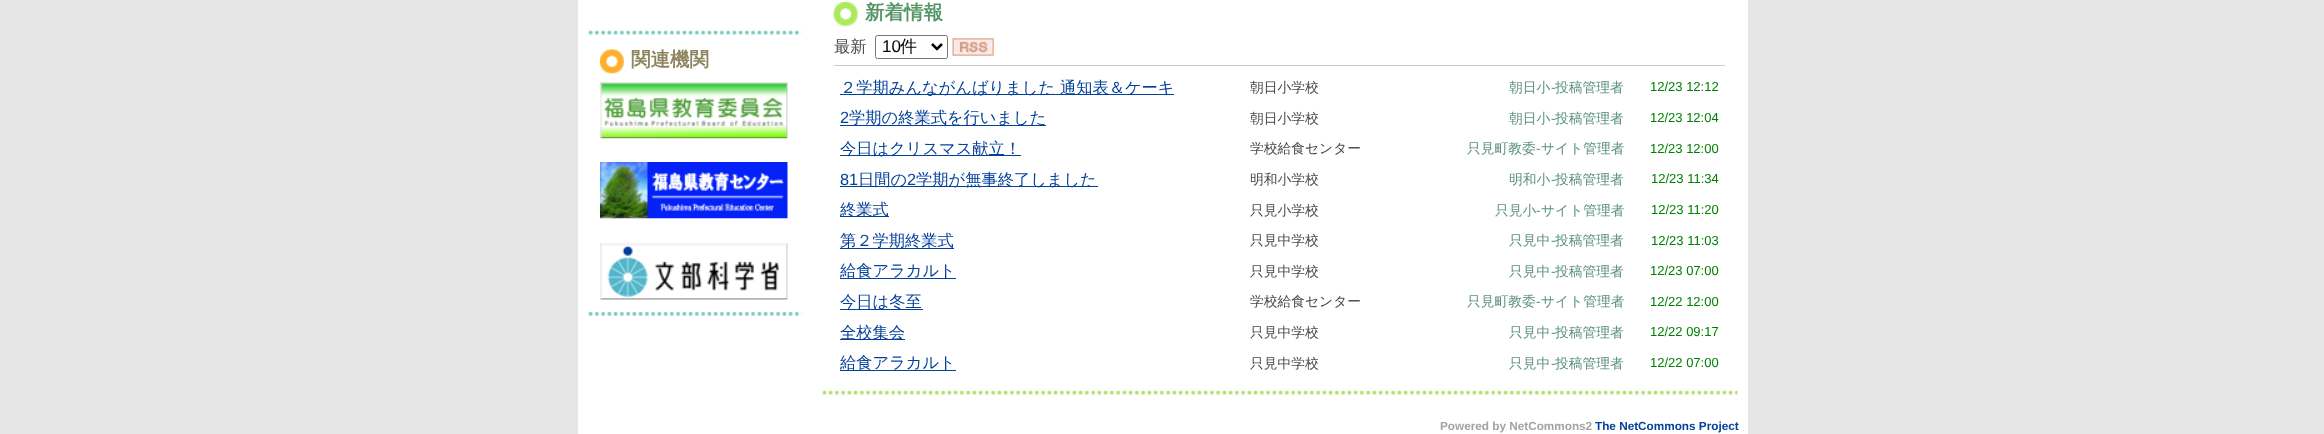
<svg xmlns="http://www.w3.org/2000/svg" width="2324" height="434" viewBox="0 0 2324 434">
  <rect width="100%" height="100%" fill="rgb(230,230,230)"/>
  <rect x="578" y="0" width="1170" height="434" fill="rgb(255,255,255)"/>
  <image x="588" y="30" width="214" height="5" href="pic1.png"/>
  <image x="600" y="49" width="24" height="25" href="pic2.png"/>
  <text x="631" y="66" font-family="WenQuanYi Zen Hei" font-size="19.5" font-weight="bold" fill="rgb(142,133,95)">関連機関</text>
  <image x="600" y="82" width="188" height="57" href="pic3.png"/>
  <image x="600" y="162" width="188" height="57" href="pic4.png"/>
  <image x="600" y="243" width="188" height="57" href="pic5.png"/>
  <image x="588" y="312" width="214" height="4" href="pic6.png"/>
  <image x="833" y="2" width="25" height="24" href="pic7.png"/>
  <text x="865" y="19" font-family="WenQuanYi Zen Hei" font-size="19.5" font-weight="bold" fill="rgb(83,149,100)">新着情報</text>
  <text x="834" y="52" font-family="WenQuanYi Zen Hei" font-size="16.25" font-weight="500" fill="rgb(73,73,73)">最新</text>
  <rect x="875.5" y="35.5" width="72" height="23" rx="2" fill="none" stroke="rgb(118,118,118)"/>
  <path d="M932 44L937 49L942 44" fill="none" stroke="rgb(0,0,0)" stroke-width="2.5"/>
  <text x="882" y="52" font-family="Liberation Sans" font-size="17" fill="rgb(0,0,0)">10</text>
  <text x="900" y="52" font-family="WenQuanYi Zen Hei" font-size="17" font-weight="500" fill="rgb(0,0,0)">件</text>
  <image x="952" y="38" width="42" height="18" href="pic8.png"/>
  <rect x="834" y="65" width="891" height="1" fill="rgb(204,204,204)"/>
  <rect x="840" y="94" width="334" height="1" fill="rgb(4,65,154)"/>
  <text x="840" y="93" font-family="WenQuanYi Zen Hei" font-size="16.25" font-weight="500" fill="rgb(4,65,154)">２学期みんながんばりました 通知表＆ケーキ</text>
  <text x="1250" y="92" font-family="WenQuanYi Zen Hei" font-size="13.75" font-weight="500" fill="rgb(73,73,73)">朝日小学校</text>
  <text x="1509" y="92" font-family="WenQuanYi Zen Hei" font-size="13.75" font-weight="500" fill="rgb(92,144,132)">朝日小</text>
  <text x="1551" y="92" font-family="Liberation Sans" font-size="13.75" fill="rgb(92,144,132)">-</text>
  <text x="1555" y="92" font-family="WenQuanYi Zen Hei" font-size="13.75" font-weight="500" fill="rgb(92,144,132)">投稿管理者</text>
  <text x="1650" y="91" font-family="Liberation Sans" font-size="13" fill="rgb(0,128,0)">12/23 12:12</text>
  <text x="840" y="123" font-family="Liberation Sans" font-size="16.25" fill="rgb(4,65,154)">2</text>
  <rect x="840" y="125" width="206" height="1" fill="rgb(4,65,154)"/>
  <text x="849" y="123" font-family="WenQuanYi Zen Hei" font-size="16.25" font-weight="500" fill="rgb(4,65,154)">学期の終業式を行いました</text>
  <text x="1250" y="123" font-family="WenQuanYi Zen Hei" font-size="13.75" font-weight="500" fill="rgb(73,73,73)">朝日小学校</text>
  <text x="1509" y="123" font-family="WenQuanYi Zen Hei" font-size="13.75" font-weight="500" fill="rgb(92,144,132)">朝日小</text>
  <text x="1551" y="123" font-family="Liberation Sans" font-size="13.75" fill="rgb(92,144,132)">-</text>
  <text x="1555" y="123" font-family="WenQuanYi Zen Hei" font-size="13.75" font-weight="500" fill="rgb(92,144,132)">投稿管理者</text>
  <text x="1650" y="122" font-family="Liberation Sans" font-size="13" fill="rgb(0,128,0)">12/23 12:04</text>
  <rect x="840" y="155" width="181" height="1" fill="rgb(4,65,154)"/>
  <text x="840" y="154" font-family="WenQuanYi Zen Hei" font-size="16.25" font-weight="500" fill="rgb(4,65,154)">今日はクリスマス献立！</text>
  <text x="1250" y="153" font-family="WenQuanYi Zen Hei" font-size="13.75" font-weight="500" fill="rgb(73,73,73)">学校給食センター</text>
  <text x="1467" y="153" font-family="WenQuanYi Zen Hei" font-size="13.75" font-weight="500" fill="rgb(92,144,132)">只見町教委</text>
  <text x="1536" y="153" font-family="Liberation Sans" font-size="13.75" fill="rgb(92,144,132)">-</text>
  <text x="1541" y="153" font-family="WenQuanYi Zen Hei" font-size="13.75" font-weight="500" fill="rgb(92,144,132)">サイト管理者</text>
  <text x="1650" y="153" font-family="Liberation Sans" font-size="13" fill="rgb(0,128,0)">12/23 12:00</text>
  <text x="840" y="185" font-family="Liberation Sans" font-size="16.25" fill="rgb(4,65,154)">81</text>
  <rect x="840" y="186" width="258" height="1" fill="rgb(4,65,154)"/>
  <text x="858" y="185" font-family="WenQuanYi Zen Hei" font-size="16.25" font-weight="500" fill="rgb(4,65,154)">日間の</text>
  <text x="907" y="185" font-family="Liberation Sans" font-size="16.25" fill="rgb(4,65,154)">2</text>
  <text x="916" y="185" font-family="WenQuanYi Zen Hei" font-size="16.25" font-weight="500" fill="rgb(4,65,154)">学期が無事終了しました</text>
  <text x="1250" y="184" font-family="WenQuanYi Zen Hei" font-size="13.75" font-weight="500" fill="rgb(73,73,73)">明和小学校</text>
  <text x="1509" y="184" font-family="WenQuanYi Zen Hei" font-size="13.75" font-weight="500" fill="rgb(92,144,132)">明和小</text>
  <text x="1551" y="184" font-family="Liberation Sans" font-size="13.75" fill="rgb(92,144,132)">-</text>
  <text x="1555" y="184" font-family="WenQuanYi Zen Hei" font-size="13.75" font-weight="500" fill="rgb(92,144,132)">投稿管理者</text>
  <text x="1651" y="183" font-family="Liberation Sans" font-size="13" fill="rgb(0,128,0)">12/23 11:34</text>
  <rect x="840" y="216" width="49" height="1" fill="rgb(4,65,154)"/>
  <text x="840" y="215" font-family="WenQuanYi Zen Hei" font-size="16.25" font-weight="500" fill="rgb(4,65,154)">終業式</text>
  <text x="1250" y="215" font-family="WenQuanYi Zen Hei" font-size="13.75" font-weight="500" fill="rgb(73,73,73)">只見小学校</text>
  <text x="1495" y="215" font-family="WenQuanYi Zen Hei" font-size="13.75" font-weight="500" fill="rgb(92,144,132)">只見小</text>
  <text x="1536" y="215" font-family="Liberation Sans" font-size="13.75" fill="rgb(92,144,132)">-</text>
  <text x="1541" y="215" font-family="WenQuanYi Zen Hei" font-size="13.75" font-weight="500" fill="rgb(92,144,132)">サイト管理者</text>
  <text x="1651" y="214" font-family="Liberation Sans" font-size="13" fill="rgb(0,128,0)">12/23 11:20</text>
  <rect x="840" y="248" width="114" height="1" fill="rgb(4,65,154)"/>
  <text x="840" y="246" font-family="WenQuanYi Zen Hei" font-size="16.25" font-weight="500" fill="rgb(4,65,154)">第２学期終業式</text>
  <text x="1250" y="245" font-family="WenQuanYi Zen Hei" font-size="13.75" font-weight="500" fill="rgb(73,73,73)">只見中学校</text>
  <text x="1509" y="245" font-family="WenQuanYi Zen Hei" font-size="13.75" font-weight="500" fill="rgb(92,144,132)">只見中</text>
  <text x="1551" y="245" font-family="Liberation Sans" font-size="13.75" fill="rgb(92,144,132)">-</text>
  <text x="1555" y="245" font-family="WenQuanYi Zen Hei" font-size="13.75" font-weight="500" fill="rgb(92,144,132)">投稿管理者</text>
  <text x="1651" y="245" font-family="Liberation Sans" font-size="13" fill="rgb(0,128,0)">12/23 11:03</text>
  <rect x="840" y="278" width="116" height="1" fill="rgb(4,65,154)"/>
  <text x="840" y="276" font-family="WenQuanYi Zen Hei" font-size="16.25" font-weight="500" fill="rgb(4,65,154)">給食アラカルト</text>
  <text x="1250" y="276" font-family="WenQuanYi Zen Hei" font-size="13.75" font-weight="500" fill="rgb(73,73,73)">只見中学校</text>
  <text x="1509" y="276" font-family="WenQuanYi Zen Hei" font-size="13.75" font-weight="500" fill="rgb(92,144,132)">只見中</text>
  <text x="1551" y="276" font-family="Liberation Sans" font-size="13.75" fill="rgb(92,144,132)">-</text>
  <text x="1555" y="276" font-family="WenQuanYi Zen Hei" font-size="13.75" font-weight="500" fill="rgb(92,144,132)">投稿管理者</text>
  <text x="1650" y="275" font-family="Liberation Sans" font-size="13" fill="rgb(0,128,0)">12/23 07:00</text>
  <rect x="840" y="309" width="83" height="1" fill="rgb(4,65,154)"/>
  <text x="840" y="307" font-family="WenQuanYi Zen Hei" font-size="16.25" font-weight="500" fill="rgb(4,65,154)">今日は冬至</text>
  <text x="1250" y="306" font-family="WenQuanYi Zen Hei" font-size="13.75" font-weight="500" fill="rgb(73,73,73)">学校給食センター</text>
  <text x="1467" y="306" font-family="WenQuanYi Zen Hei" font-size="13.75" font-weight="500" fill="rgb(92,144,132)">只見町教委</text>
  <text x="1536" y="306" font-family="Liberation Sans" font-size="13.75" fill="rgb(92,144,132)">-</text>
  <text x="1541" y="306" font-family="WenQuanYi Zen Hei" font-size="13.75" font-weight="500" fill="rgb(92,144,132)">サイト管理者</text>
  <text x="1650" y="306" font-family="Liberation Sans" font-size="13" fill="rgb(0,128,0)">12/22 12:00</text>
  <rect x="840" y="339" width="65" height="1" fill="rgb(4,65,154)"/>
  <text x="840" y="338" font-family="WenQuanYi Zen Hei" font-size="16.25" font-weight="500" fill="rgb(4,65,154)">全校集会</text>
  <text x="1250" y="337" font-family="WenQuanYi Zen Hei" font-size="13.75" font-weight="500" fill="rgb(73,73,73)">只見中学校</text>
  <text x="1509" y="337" font-family="WenQuanYi Zen Hei" font-size="13.75" font-weight="500" fill="rgb(92,144,132)">只見中</text>
  <text x="1551" y="337" font-family="Liberation Sans" font-size="13.75" fill="rgb(92,144,132)">-</text>
  <text x="1555" y="337" font-family="WenQuanYi Zen Hei" font-size="13.75" font-weight="500" fill="rgb(92,144,132)">投稿管理者</text>
  <text x="1650" y="336" font-family="Liberation Sans" font-size="13" fill="rgb(0,128,0)">12/22 09:17</text>
  <rect x="840" y="370" width="116" height="1" fill="rgb(4,65,154)"/>
  <text x="840" y="368" font-family="WenQuanYi Zen Hei" font-size="16.25" font-weight="500" fill="rgb(4,65,154)">給食アラカルト</text>
  <text x="1250" y="368" font-family="WenQuanYi Zen Hei" font-size="13.75" font-weight="500" fill="rgb(73,73,73)">只見中学校</text>
  <text x="1509" y="368" font-family="WenQuanYi Zen Hei" font-size="13.75" font-weight="500" fill="rgb(92,144,132)">只見中</text>
  <text x="1551" y="368" font-family="Liberation Sans" font-size="13.75" fill="rgb(92,144,132)">-</text>
  <text x="1555" y="368" font-family="WenQuanYi Zen Hei" font-size="13.75" font-weight="500" fill="rgb(92,144,132)">投稿管理者</text>
  <text x="1650" y="367" font-family="Liberation Sans" font-size="13" fill="rgb(0,128,0)">12/22 07:00</text>
  <image x="822" y="390" width="916" height="5" href="pic9.png"/>
  <text x="1440" y="430" font-family="Liberation Sans" font-size="11.75" font-weight="bold" fill="rgb(163,163,163)">Powered by NetCommons2</text>
  <text x="1595" y="430" font-family="Liberation Sans" font-size="11.75" font-weight="bold" fill="rgb(4,65,154)">The NetCommons Project</text>
</svg>
